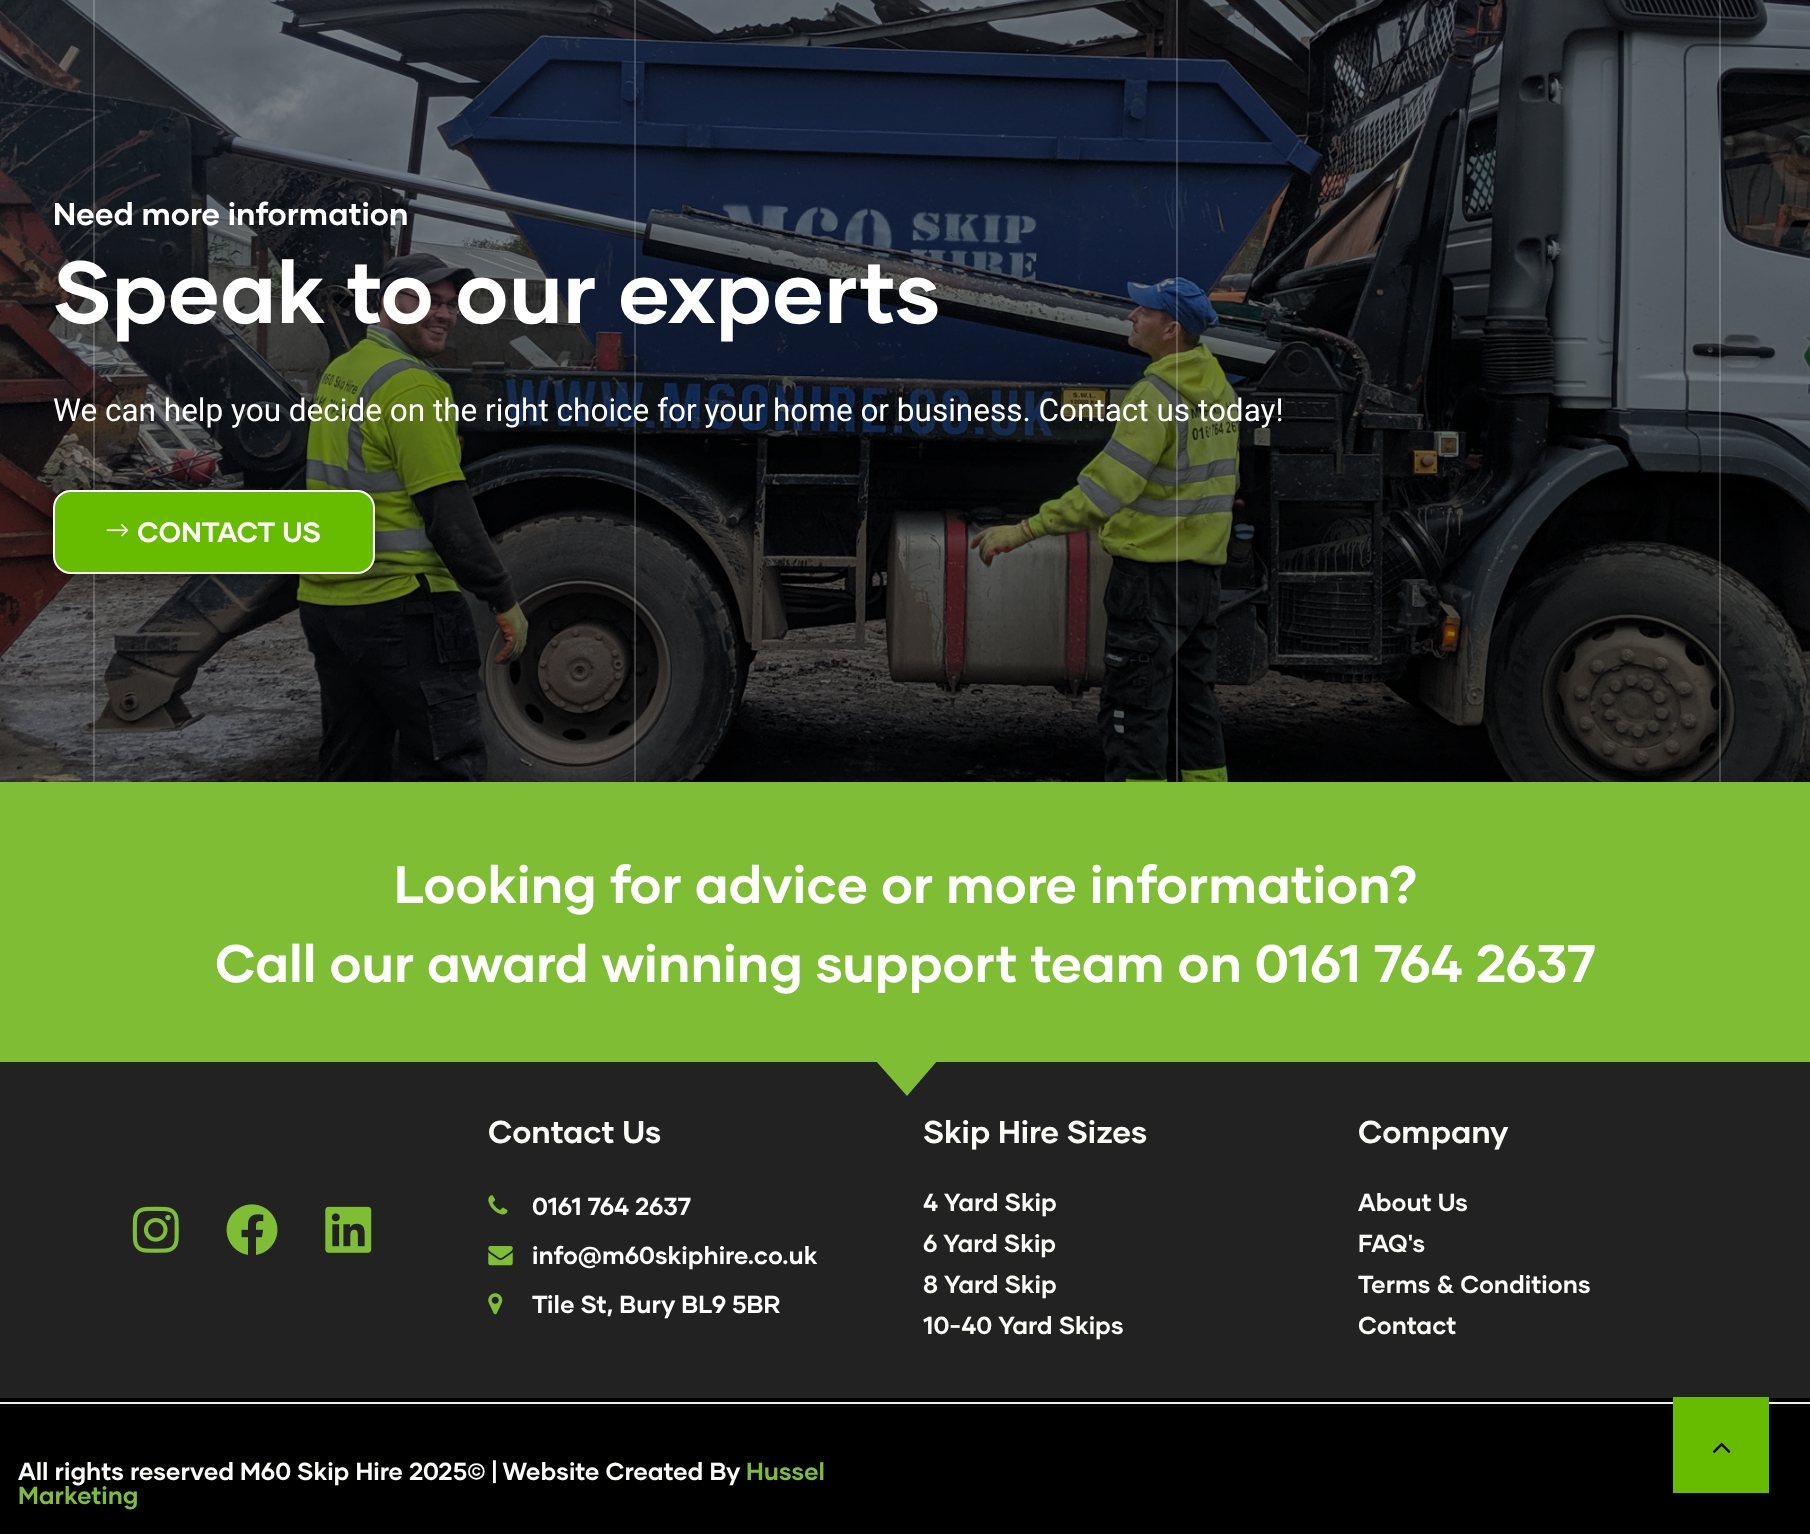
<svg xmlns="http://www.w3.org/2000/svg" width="1810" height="1534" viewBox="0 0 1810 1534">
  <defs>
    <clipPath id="clip1"><rect x="0" y="1061" width="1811" height="35"/></clipPath>
  </defs>
  <rect width="100%" height="100%" fill="rgb(255,255,255)"/>
  <image x="0" y="0" width="1810" height="782" href="pic1.png"/>
  <rect x="1719" y="0" width="2" height="782" fill="rgba(255,255,255,0.2)"/>
  <rect x="93" y="0" width="2" height="782" fill="rgba(255,255,255,0.2)"/>
  <rect x="634" y="0" width="2" height="782" fill="rgba(255,255,255,0.2)"/>
  <rect x="1176" y="0" width="2" height="782" fill="rgba(255,255,255,0.2)"/>
  <text x="53" y="225" font-family="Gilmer" font-size="31.5" font-weight="bold" fill="rgb(255,255,255)">Need more information</text>
  <text x="53" y="323" font-family="Gilmer" font-size="87.5" font-weight="bold" fill="rgb(255,255,255)">Speak to our experts</text>
  <text x="53" y="421" font-family="Roboto" font-size="31.5" fill="rgb(255,255,255)">We can help you decide on the right choice for your home or business. Contact us today!</text>
  <rect x="53" y="490" width="322" height="84" rx="18" fill="rgba(0,0,0,0.5)" filter="blur(9px)"/>
  <rect x="54" y="491" width="320" height="82" rx="17" fill="rgb(103,188,0)" stroke="rgb(255,255,255)" stroke-width="2"/>
  <image x="106" y="524" width="23" height="13" href="pic2.png"/>
  <text x="137" y="542" font-family="Gilmer" font-size="28" font-weight="bold" fill="rgb(255,255,255)">CONTACT US</text>
  <rect x="0" y="782" width="1810" height="280" fill="rgb(127,189,52)"/>
  <g font-family="Gilmer" font-size="52.5" font-weight="bold" fill="rgb(255,255,255)">
    <text x="394" y="903">Looking for advice or more information?</text>
    <text x="215" y="982">Call our award winning support team on 0161 764 2637</text>
  </g>
  <rect x="0" y="1062" width="1810" height="336" fill="rgb(34,34,35)"/>
  <g clip-path="url(#clip1)">
    <path d="M907 1096L875 1060H938Z" fill="rgb(127,189,52)"/>
  </g>
  <image x="132" y="1206" width="47" height="47" href="pic3.png"/>
  <image x="226" y="1204" width="52" height="51" href="pic4.png"/>
  <image x="325" y="1206" width="47" height="47" href="pic5.png"/>
  <text x="488" y="1143" font-family="Gilmer" font-size="31.5" font-weight="bold" fill="rgb(251,251,248)">Contact Us</text>
  <image x="488" y="1195" width="20" height="20" href="pic6.png"/>
  <text x="532" y="1215" font-family="Gilmer" font-size="24.5" font-weight="bold" fill="rgb(255,255,255)">0161 764 2637</text>
  <image x="488" y="1246" width="25" height="20" href="pic7.png"/>
  <text x="532" y="1264" font-family="Gilmer" font-size="24.5" font-weight="bold" fill="rgb(255,255,255)">info@m60skiphire.co.uk</text>
  <image x="488" y="1293" width="15" height="22" href="pic8.png"/>
  <text x="532" y="1313" font-family="Gilmer" font-size="24.5" font-weight="bold" fill="rgb(255,255,255)">Tile St, Bury BL9 5BR</text>
  <text x="923" y="1143" font-family="Gilmer" font-size="31.5" font-weight="bold" fill="rgb(251,251,248)">Skip Hire Sizes</text>
  <g font-family="Gilmer" font-size="24.5" font-weight="bold" fill="rgb(251,251,248)">
    <text>
      <tspan x="923" y="1211">4 Yard Skip</tspan>
      <tspan x="923" y="1252">6 Yard Skip</tspan>
      <tspan x="923" y="1293">8 Yard Skip</tspan>
      <tspan x="923" y="1334">10-40 Yard Skips</tspan>
    </text>
  </g>
  <text x="1358" y="1143" font-family="Gilmer" font-size="31.5" font-weight="bold" fill="rgb(251,251,248)">Company</text>
  <g font-family="Gilmer" font-size="24.5" font-weight="bold" fill="rgb(251,251,248)">
    <text>
      <tspan x="1358" y="1211">About Us</tspan>
      <tspan x="1358" y="1252">FAQ's</tspan>
      <tspan x="1358" y="1293">Terms &amp; Conditions</tspan>
      <tspan x="1358" y="1334">Contact</tspan>
    </text>
  </g>
  <rect x="0" y="1398" width="1810" height="136" fill="rgb(0,0,0)"/>
  <rect x="0" y="1402" width="1810" height="2" fill="rgb(238,238,238)"/>
  <text x="18" y="1480" font-family="Gilmer" font-size="24.5" font-weight="bold" fill="rgb(251,251,248)">All rights reserved M60 Skip Hire 2025© | Website Created By</text>
  <g font-family="Gilmer" font-size="24.5" font-weight="bold" fill="rgb(127,189,52)">
    <text x="746" y="1480">Hussel</text>
    <text x="18" y="1504">Marketing</text>
  </g>
  <rect x="1673" y="1397" width="96" height="96" fill="rgb(103,188,0)"/>
  <image x="1712" y="1442" width="19" height="11" href="pic9.png"/>
</svg>
